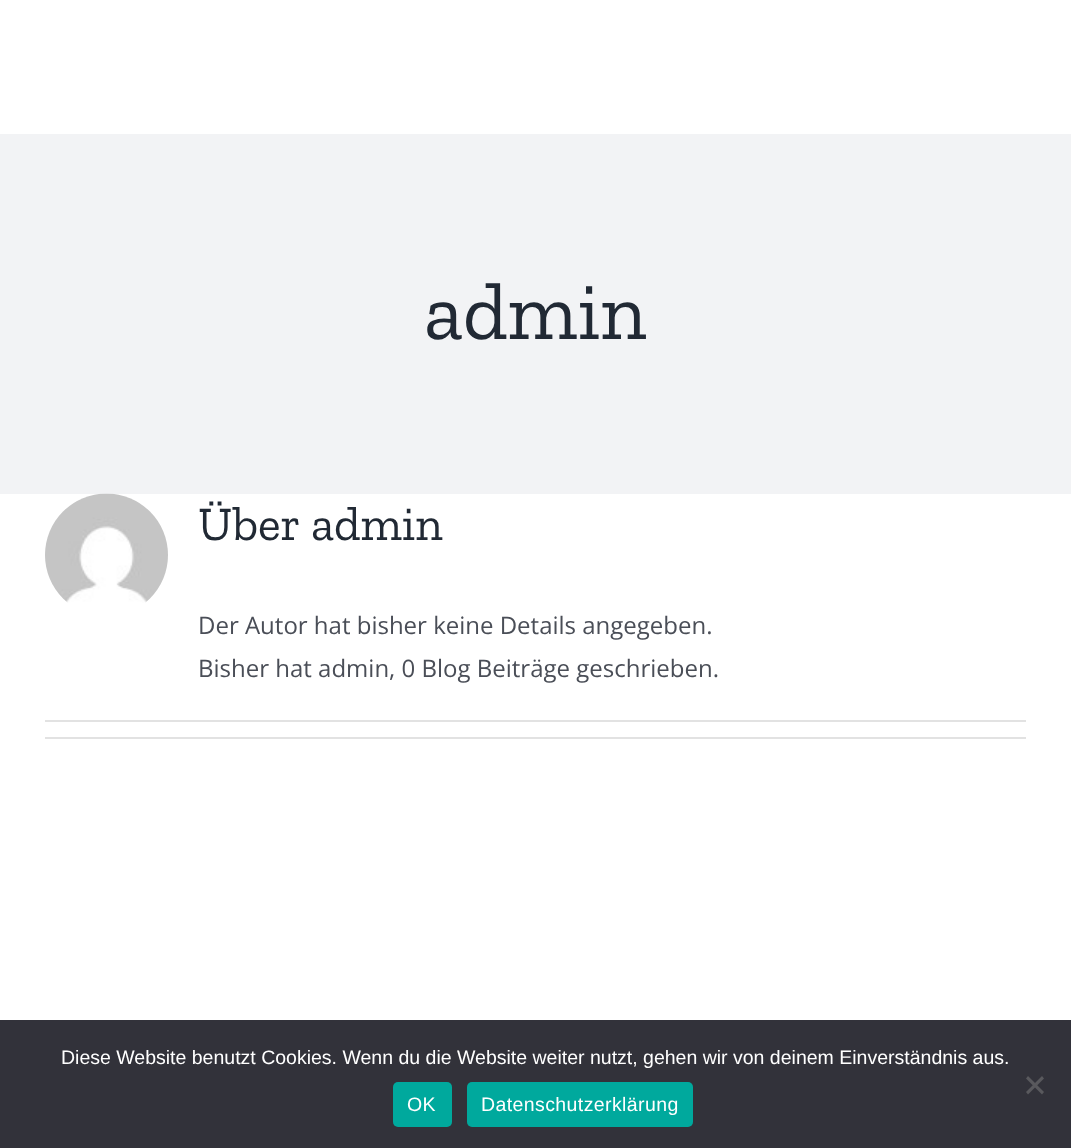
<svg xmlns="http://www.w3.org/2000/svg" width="1071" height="1148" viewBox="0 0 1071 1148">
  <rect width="100%" height="100%" fill="rgb(255,255,255)"/>
  <rect x="0" y="134" width="1071" height="360" fill="rgb(242,243,245)"/>
  <text x="424" y="339" font-family="Zilla Slab" font-size="81" fill="rgb(33,41,52)">admin</text>
  <image x="45" y="493" width="123" height="110" href="pic1.png"/>
  <text x="198" y="540" font-family="Zilla Slab" font-size="48" fill="rgb(33,41,52)">Über admin</text>
  <g font-family="Open Sans" font-size="24" fill="rgb(74,78,87)">
    <text>
      <tspan x="198" y="634">Der Autor hat bisher keine Details angegeben.</tspan>
      <tspan x="198" y="677">Bisher hat admin, 0 Blog Beiträge geschrieben.</tspan>
    </text>
  </g>
  <rect x="45" y="720" width="981" height="2" fill="rgb(226,226,226)"/>
  <rect x="45" y="737" width="981" height="2" fill="rgb(226,226,226)"/>
  <rect x="0" y="1020" width="1071" height="128" fill="rgb(50,50,58)"/>
  <text x="61" y="1064" font-family="Liberation Sans" font-size="19.5" fill="rgb(255,255,255)">Diese Website benutzt Cookies. Wenn du die Website weiter nutzt, gehen wir von deinem Einverständnis aus.</text>
  <path d="M1042 1076L1044 1078.5L1028 1094.5L1026 1092Z" fill="rgb(89,89,93)"/>
  <path d="M1026 1078.5L1028 1076L1044 1092L1042 1094.5Z" fill="rgb(89,89,93)"/>
  <rect x="393" y="1082" width="59" height="45" rx="5" fill="rgb(0,169,157)"/>
  <text x="407" y="1111" font-family="Liberation Sans" font-size="19.5" letter-spacing="0.4" fill="rgb(255,255,255)">OK</text>
  <rect x="467" y="1082" width="226" height="45" rx="5" fill="rgb(0,169,157)"/>
  <text x="481" y="1111" font-family="Liberation Sans" font-size="19.5" letter-spacing="0.4" fill="rgb(255,255,255)">Datenschutzerklärung</text>
</svg>
